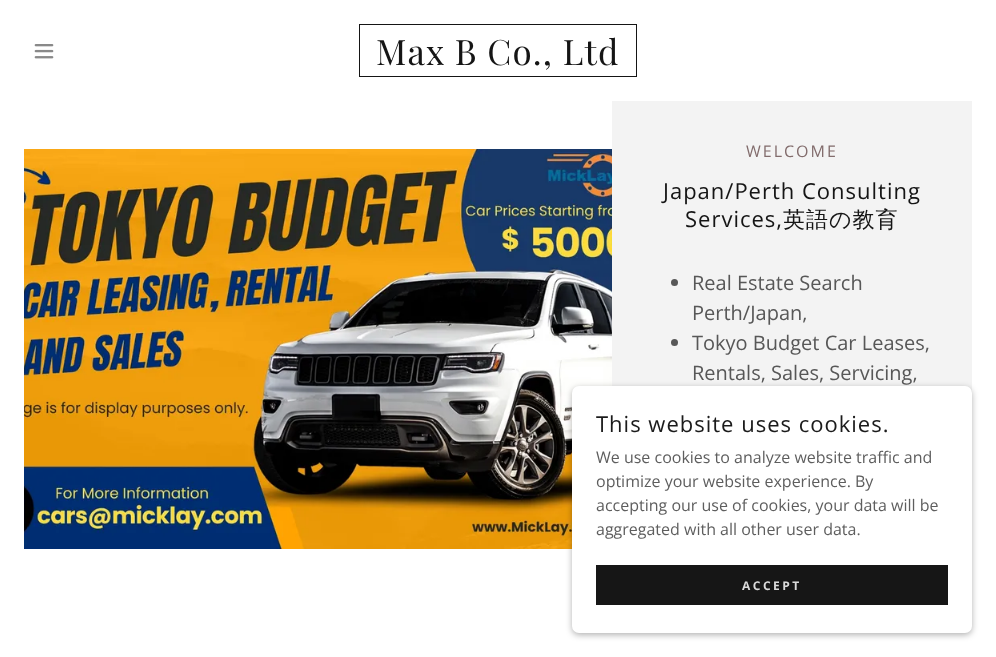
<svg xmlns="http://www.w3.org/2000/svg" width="996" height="657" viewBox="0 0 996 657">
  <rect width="100%" height="100%" fill="rgb(255,255,255)"/>
  <image x="34" y="44" width="20" height="15" href="pic1.png"/>
  <rect x="359.5" y="24.5" width="277" height="52" fill="none" stroke="rgb(21,21,21)"/>
  <text x="376" y="65" font-family="Playfair Display" font-size="35" letter-spacing="1.1" fill="rgb(21,21,21)">Max B Co., Ltd</text>
  <image x="24" y="149" width="588" height="400" href="pic2.png"/>
  <rect x="612" y="101" width="360" height="292" fill="rgb(243,243,243)"/>
  <text x="746" y="157" font-family="Open Sans" font-size="16" letter-spacing="2" fill="rgb(130,108,108)">WELCOME</text>
  <g font-family="Open Sans" font-size="22" letter-spacing="1" fill="rgb(21,21,21)">
    <text x="663" y="199">Japan/Perth Consulting</text>
    <text x="685" y="227">Services,</text>
  </g>
  <text x="783" y="227" font-family="WenQuanYi Zen Hei" font-size="22" font-weight="500" letter-spacing="1" fill="rgb(21,21,21)">英語の教育</text>
  <circle cx="674.5" cy="282.5" r="3.5" fill="rgb(87,87,87)"/>
  <g font-family="Open Sans" font-size="20" fill="rgb(87,87,87)">
    <text>
      <tspan x="692" y="290">Real Estate Search</tspan>
      <tspan x="692" y="320">Perth/Japan,</tspan>
    </text>
  </g>
  <circle cx="674.5" cy="342.5" r="3.5" fill="rgb(87,87,87)"/>
  <g font-family="Open Sans" font-size="20" fill="rgb(87,87,87)">
    <text>
      <tspan x="692" y="350">Tokyo Budget Car Leases,</tspan>
      <tspan x="692" y="380">Rentals, Sales, Servicing,</tspan>
    </text>
  </g>
  <rect x="572" y="388" width="400" height="247" rx="7" fill="rgba(0,0,0,0.3)" filter="blur(3px)"/>
  <rect x="572" y="386" width="400" height="247" rx="7" fill="rgb(255,255,255)"/>
  <text x="596" y="432" font-family="Open Sans" font-size="22" letter-spacing="1" fill="rgb(27,27,27)">This website uses cookies.</text>
  <g font-family="Open Sans" font-size="16" fill="rgb(94,94,94)">
    <text>
      <tspan x="596" y="463">We use cookies to analyze website traffic and</tspan>
      <tspan x="596" y="487">optimize your website experience. By</tspan>
      <tspan x="596" y="511">accepting our use of cookies, your data will be</tspan>
      <tspan x="596" y="535">aggregated with all other user data.</tspan>
    </text>
  </g>
  <rect x="596" y="565" width="352" height="40" fill="rgb(22,22,22)"/>
  <text x="742" y="590" font-family="Open Sans" font-size="12" font-weight="bold" letter-spacing="2.5" fill="rgb(219,219,219)">ACCEPT</text>
</svg>
